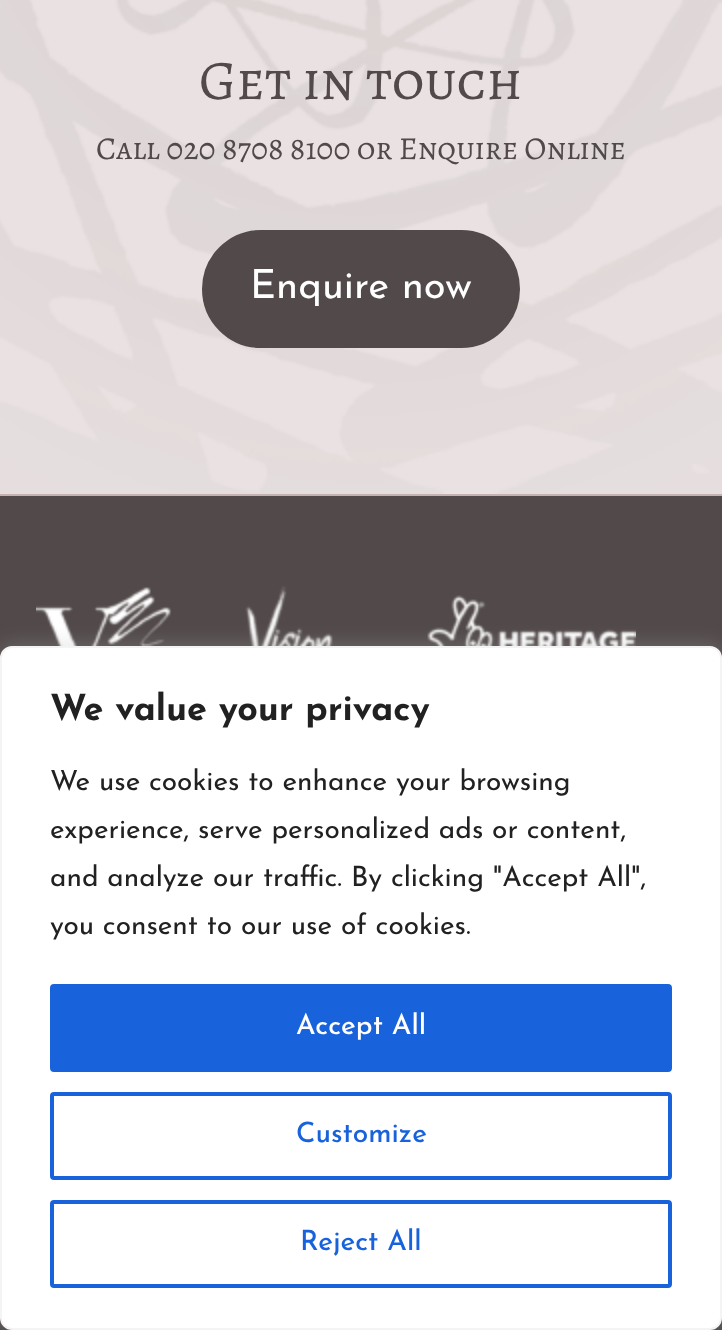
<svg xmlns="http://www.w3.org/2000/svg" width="722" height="1330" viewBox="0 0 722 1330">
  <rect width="100%" height="100%" fill="rgb(196,177,177)"/>
  <image x="0" y="0" width="722" height="494" href="pic1.png"/>
  <text x="199" y="99" font-family="Alegreya SC" font-size="56" fill="rgb(82,74,74)">Get in touch</text>
  <text x="96" y="159" font-family="Alegreya SC" font-size="32" fill="rgb(82,74,74)">Call 020 8708 8100 or Enquire Online</text>
  <rect x="204" y="232" width="314" height="114" rx="57" fill="rgb(82,74,74)" stroke="rgb(82,74,74)" stroke-width="4"/>
  <text x="250" y="298" font-family="Josefin Sans" font-size="40" fill="rgb(255,255,255)">Enquire now</text>
  <rect x="0" y="496" width="722" height="834" fill="rgb(82,74,74)"/>
  <image x="36" y="586" width="600" height="60" href="pic2.png"/>
  <rect x="0" y="644" width="722" height="684" rx="12" fill="rgba(172,171,171,0.3)" filter="blur(10px)"/>
  <rect x="1" y="647" width="720" height="682" rx="11" fill="rgb(255,255,255)" stroke="rgb(244,244,244)" stroke-width="2"/>
  <text x="50" y="720" font-family="Josefin Sans" font-size="36" font-weight="bold" fill="rgb(33,33,33)">We value your privacy</text>
  <g font-family="Josefin Sans" font-size="28" fill="rgb(33,33,33)">
    <text>
      <tspan x="50" y="790">We use cookies to enhance your browsing</tspan>
      <tspan x="50" y="838">experience, serve personalized ads or content,</tspan>
      <tspan x="50" y="886">and analyze our traffic. By clicking "Accept All",</tspan>
      <tspan x="50" y="934">you consent to our use of cookies.</tspan>
    </text>
  </g>
  <rect x="52" y="986" width="618" height="84" rx="2" fill="rgb(24,99,220)" stroke="rgb(24,99,220)" stroke-width="4"/>
  <text x="296" y="1034" font-family="Josefin Sans" font-size="28" font-weight="500" fill="rgb(255,255,255)">Accept All</text>
  <rect x="52" y="1094" width="618" height="84" rx="2" fill="none" stroke="rgb(24,99,220)" stroke-width="4"/>
  <text x="296" y="1142" font-family="Josefin Sans" font-size="28" font-weight="500" fill="rgb(24,99,220)">Customize</text>
  <rect x="52" y="1202" width="618" height="84" rx="2" fill="none" stroke="rgb(24,99,220)" stroke-width="4"/>
  <text x="300" y="1250" font-family="Josefin Sans" font-size="28" font-weight="500" fill="rgb(24,99,220)">Reject All</text>
</svg>
